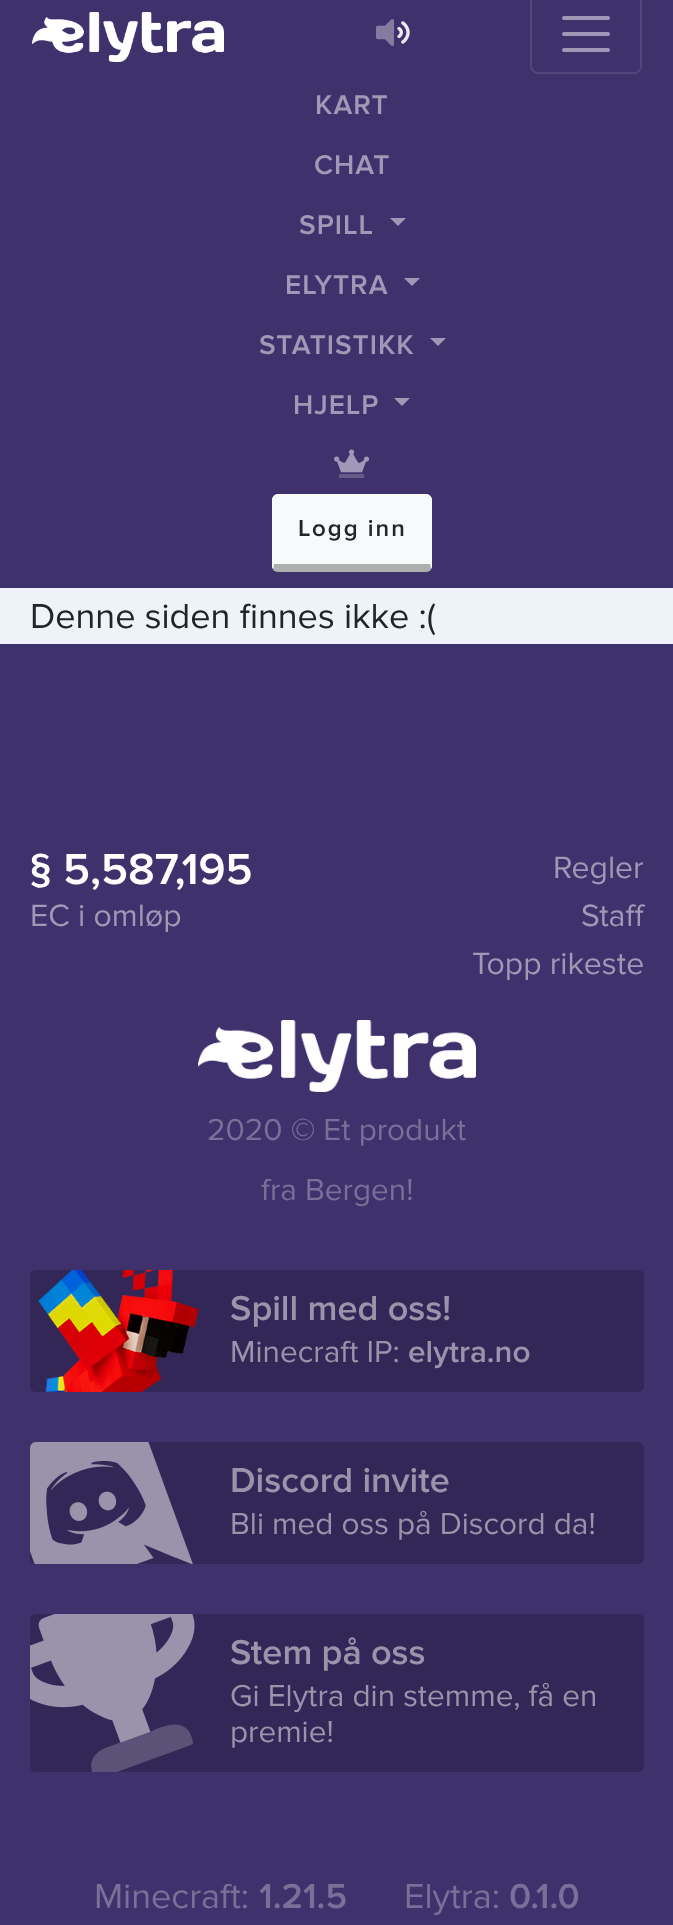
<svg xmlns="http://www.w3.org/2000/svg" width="673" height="1925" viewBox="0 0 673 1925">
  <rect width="100%" height="100%" fill="rgb(238,243,250)"/>
  <rect x="0" y="0" width="673" height="588" fill="rgb(63,49,108)"/>
  <image x="32" y="12" width="192" height="50" href="pic1.png"/>
  <image x="376" y="19" width="18" height="27" href="pic2.png"/>
  <image x="397" y="21" width="13" height="23" href="pic3.png"/>
  <rect x="531" y="-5" width="110" height="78" rx="7" fill="none" stroke="rgb(82,70,123)" stroke-width="2"/>
  <path d="M564 18H608M564 34H608M564 50H608" fill="none" stroke="rgb(159,152,182)" stroke-width="4" stroke-linecap="round"/>
  <g font-family="Proxima Nova" font-size="28" font-weight="600" letter-spacing="1" fill="rgb(159,152,182)">
    <text x="315" y="114">KART</text>
    <text x="314" y="174">CHAT</text>
    <text x="299" y="234">SPILL</text>
  </g>
  <path d="M390 218H406L398 226Z" fill="rgb(159,152,182)"/>
  <text x="285" y="294" font-family="Proxima Nova" font-size="28" font-weight="600" letter-spacing="1" fill="rgb(159,152,182)">ELYTRA</text>
  <path d="M404 278H420L412 286Z" fill="rgb(159,152,182)"/>
  <text x="259" y="354" font-family="Proxima Nova" font-size="28" font-weight="600" letter-spacing="1" fill="rgb(159,152,182)">STATISTIKK</text>
  <path d="M430 338H446L438 346Z" fill="rgb(159,152,182)"/>
  <text x="293" y="414" font-family="Proxima Nova" font-size="28" font-weight="600" letter-spacing="1" fill="rgb(159,152,182)">HJELP</text>
  <path d="M394 398H410L402 406Z" fill="rgb(159,152,182)"/>
  <image x="334" y="449" width="35" height="24" href="pic4.png"/>
  <rect x="339" y="474" width="25" height="4" fill="rgb(101,90,137)"/>
  <rect x="272" y="494" width="160" height="78" rx="6" fill="rgb(248,249,250)"/>
  <path d="M278 494C276 494 275 495 274 496L275 497C276 496 277 496 278 496H426C427 496 428 496 429 497L430 496C429 495 428 494 426 494Z" fill="rgb(248,249,250)"/>
  <path d="M432 566V500C432 498 431 497 430 496L429 497L430 500V564L431 569Z" fill="rgb(248,249,250)"/>
  <path d="M278 572H426C428 572 430 571 431 569L430 564H274L273 569C274 571 276 572 278 572Z" fill="rgba(0,0,0,0.3)"/>
  <path d="M272 500V566L273 569L274 564V500L275 497L274 496C273 497 272 498 272 500Z" fill="rgb(248,249,250)"/>
  <text x="298" y="536" font-family="Proxima Nova" font-size="24" font-weight="600" letter-spacing="2" fill="rgb(33,37,41)">Logg inn</text>
  <text x="30" y="628" font-family="Proxima Nova" font-size="36" fill="rgb(33,37,41)">Denne siden finnes ikke :(</text>
  <rect x="0" y="644" width="673" height="1281" fill="rgb(63,49,108)"/>
  <text x="30" y="884" font-family="Proxima Nova" font-size="45" font-weight="600" fill="rgb(255,255,255)">§ 5,587,195</text>
  <g font-family="Proxima Nova" font-size="32" fill="rgb(159,152,182)">
    <text x="30" y="926">EC i omløp</text>
    <text x="553" y="878">Regler</text>
    <text x="581" y="926">Staff</text>
    <text x="472" y="974">Topp rikeste</text>
  </g>
  <image x="198" y="1020" width="278" height="72" href="pic5.png"/>
  <g font-family="Proxima Nova" font-size="31.5" fill="rgb(121,111,152)">
    <text x="207" y="1140">2020 © Et produkt</text>
    <text x="261" y="1200">fra Bergen!</text>
  </g>
  <rect x="30" y="1270" width="614" height="122" rx="6" fill="rgb(50,39,86)"/>
  <image x="38" y="1270" width="161" height="122" href="pic6.png"/>
  <text x="230" y="1320" font-family="Proxima Nova" font-size="36" font-weight="600" fill="rgb(153,147,171)">Spill med oss!</text>
  <text x="230" y="1362" font-family="Proxima Nova" font-size="31.5" fill="rgb(153,147,171)">Minecraft IP:</text>
  <text x="408" y="1362" font-family="Proxima Nova" font-size="31.5" font-weight="600" fill="rgb(153,147,171)">elytra.no</text>
  <rect x="30" y="1442" width="614" height="122" rx="6" fill="rgb(50,39,86)"/>
  <image x="30" y="1442" width="163" height="122" href="pic7.png"/>
  <text x="230" y="1492" font-family="Proxima Nova" font-size="36" font-weight="600" fill="rgb(153,147,171)">Discord invite</text>
  <text x="230" y="1534" font-family="Proxima Nova" font-size="31.5" fill="rgb(153,147,171)">Bli med oss på Discord da!</text>
  <rect x="30" y="1614" width="614" height="158" rx="6" fill="rgb(50,39,86)"/>
  <image x="30" y="1614" width="165" height="129" href="pic8.png"/>
  <path d="M105 1748L150 1732C162 1726 179 1719 189 1731L192 1738C193 1741 194 1744 191 1745L117 1772H92C89 1761 94 1753 105 1748Z" fill="rgba(255,255,255,0.2)"/>
  <text x="230" y="1664" font-family="Proxima Nova" font-size="36" font-weight="600" fill="rgb(153,147,171)">Stem på oss</text>
  <g font-family="Proxima Nova" font-size="31.5" fill="rgb(153,147,171)">
    <text>
      <tspan x="230" y="1706">Gi Elytra din stemme, få en</tspan>
      <tspan x="230" y="1742">premie!</tspan>
    </text>
  </g>
  <text x="94" y="1908" font-family="Proxima Nova" font-size="36" fill="rgb(121,111,152)">Minecraft:</text>
  <text x="259" y="1908" font-family="Proxima Nova" font-size="36" font-weight="600" fill="rgb(121,111,152)">1.21.5</text>
  <text x="404" y="1908" font-family="Proxima Nova" font-size="36" fill="rgb(121,111,152)">Elytra:</text>
  <text x="509" y="1908" font-family="Proxima Nova" font-size="36" font-weight="600" fill="rgb(121,111,152)">0.1.0</text>
</svg>
